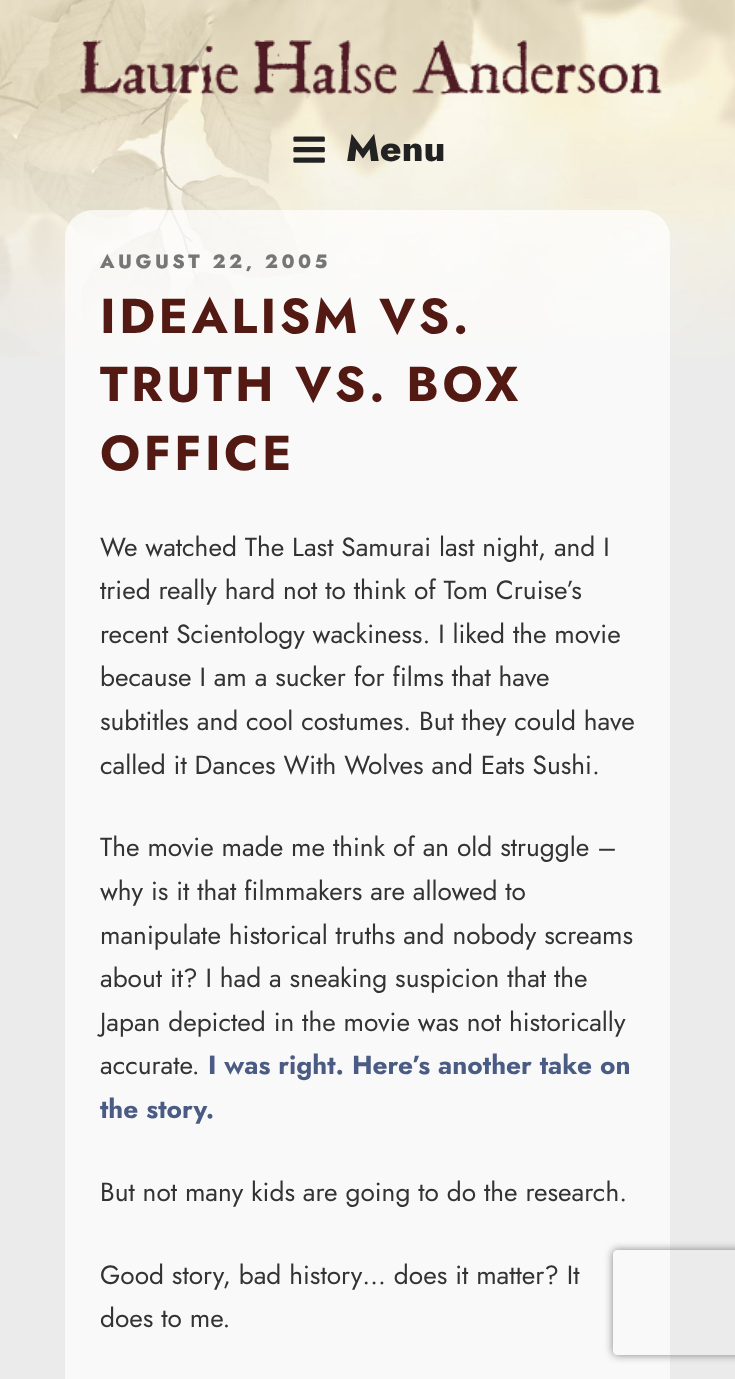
<svg xmlns="http://www.w3.org/2000/svg" width="735" height="1379" viewBox="0 0 735 1379">
  <defs>
    <clipPath id="clip1"><path d="M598 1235H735V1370H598ZM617 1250H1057C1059 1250 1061 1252 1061 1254V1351C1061 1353 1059 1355 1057 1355H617C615 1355 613 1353 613 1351V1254C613 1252 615 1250 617 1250Z" clip-rule="evenodd"/></clipPath>
  </defs>
  <rect width="100%" height="100%" fill="rgb(235,235,235)"/>
  <image x="0" y="0" width="735" height="357" href="pic3.png"/>
  <image x="80" y="40" width="582" height="55" href="pic1.png"/>
  <image x="293" y="136" width="32" height="27" href="pic2.png"/>
  <text x="346" y="161" font-family="Jost" font-size="37" font-weight="800" fill="rgb(34,34,34)">Menu</text>
  <rect x="65" y="210" width="605" height="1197" rx="28" fill="rgba(255,255,255,0.7)"/>
  <text x="100" y="268" font-family="Jost" font-size="19.25" font-weight="800" letter-spacing="3.5" fill="rgb(118,118,118)">AUGUST 22, 2005</text>
  <g font-family="Jost" font-size="49" font-weight="bold" letter-spacing="3.5" fill="rgb(82,26,18)">
    <text>
      <tspan x="100" y="333">IDEALISM VS.</tspan>
      <tspan x="100" y="401">TRUTH VS. BOX</tspan>
      <tspan x="100" y="470">OFFICE</tspan>
    </text>
  </g>
  <g font-family="Jost" font-size="26.25" fill="rgb(51,51,51)">
    <text>
      <tspan x="100" y="556">We watched The Last Samurai last night, and I</tspan>
      <tspan x="100" y="599">tried really hard not to think of Tom Cruise’s</tspan>
      <tspan x="100" y="643">recent Scientology wackiness. I liked the movie</tspan>
      <tspan x="100" y="686">because I am a sucker for films that have</tspan>
      <tspan x="100" y="730">subtitles and cool costumes. But they could have</tspan>
      <tspan x="100" y="774">called it Dances With Wolves and Eats Sushi.</tspan>
    </text>
    <text>
      <tspan x="100" y="856">The movie made me think of an old struggle –</tspan>
      <tspan x="100" y="900">why is it that filmmakers are allowed to</tspan>
      <tspan x="100" y="944">manipulate historical truths and nobody screams</tspan>
      <tspan x="100" y="987">about it? I had a sneaking suspicion that the</tspan>
      <tspan x="100" y="1031">Japan depicted in the movie was not historically</tspan>
      <tspan x="100" y="1074">accurate.</tspan>
    </text>
  </g>
  <g font-family="Jost" font-size="26.25" font-weight="bold" fill="rgb(75,92,132)">
    <text x="208" y="1074">I was right. Here’s another take on</text>
    <text x="100" y="1118">the story.</text>
  </g>
  <g font-family="Jost" font-size="26.25" fill="rgb(51,51,51)">
    <text x="100" y="1201">But not many kids are going to do the research.</text>
    <text>
      <tspan x="100" y="1284">Good story, bad history… does it matter? It</tspan>
      <tspan x="100" y="1327">does to me.</tspan>
    </text>
  </g>
  <g clip-path="url(#clip1)">
    <rect x="613" y="1250" width="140" height="105" rx="4" fill="rgb(128,128,128)" filter="blur(4.5px)"/>
  </g>
</svg>
